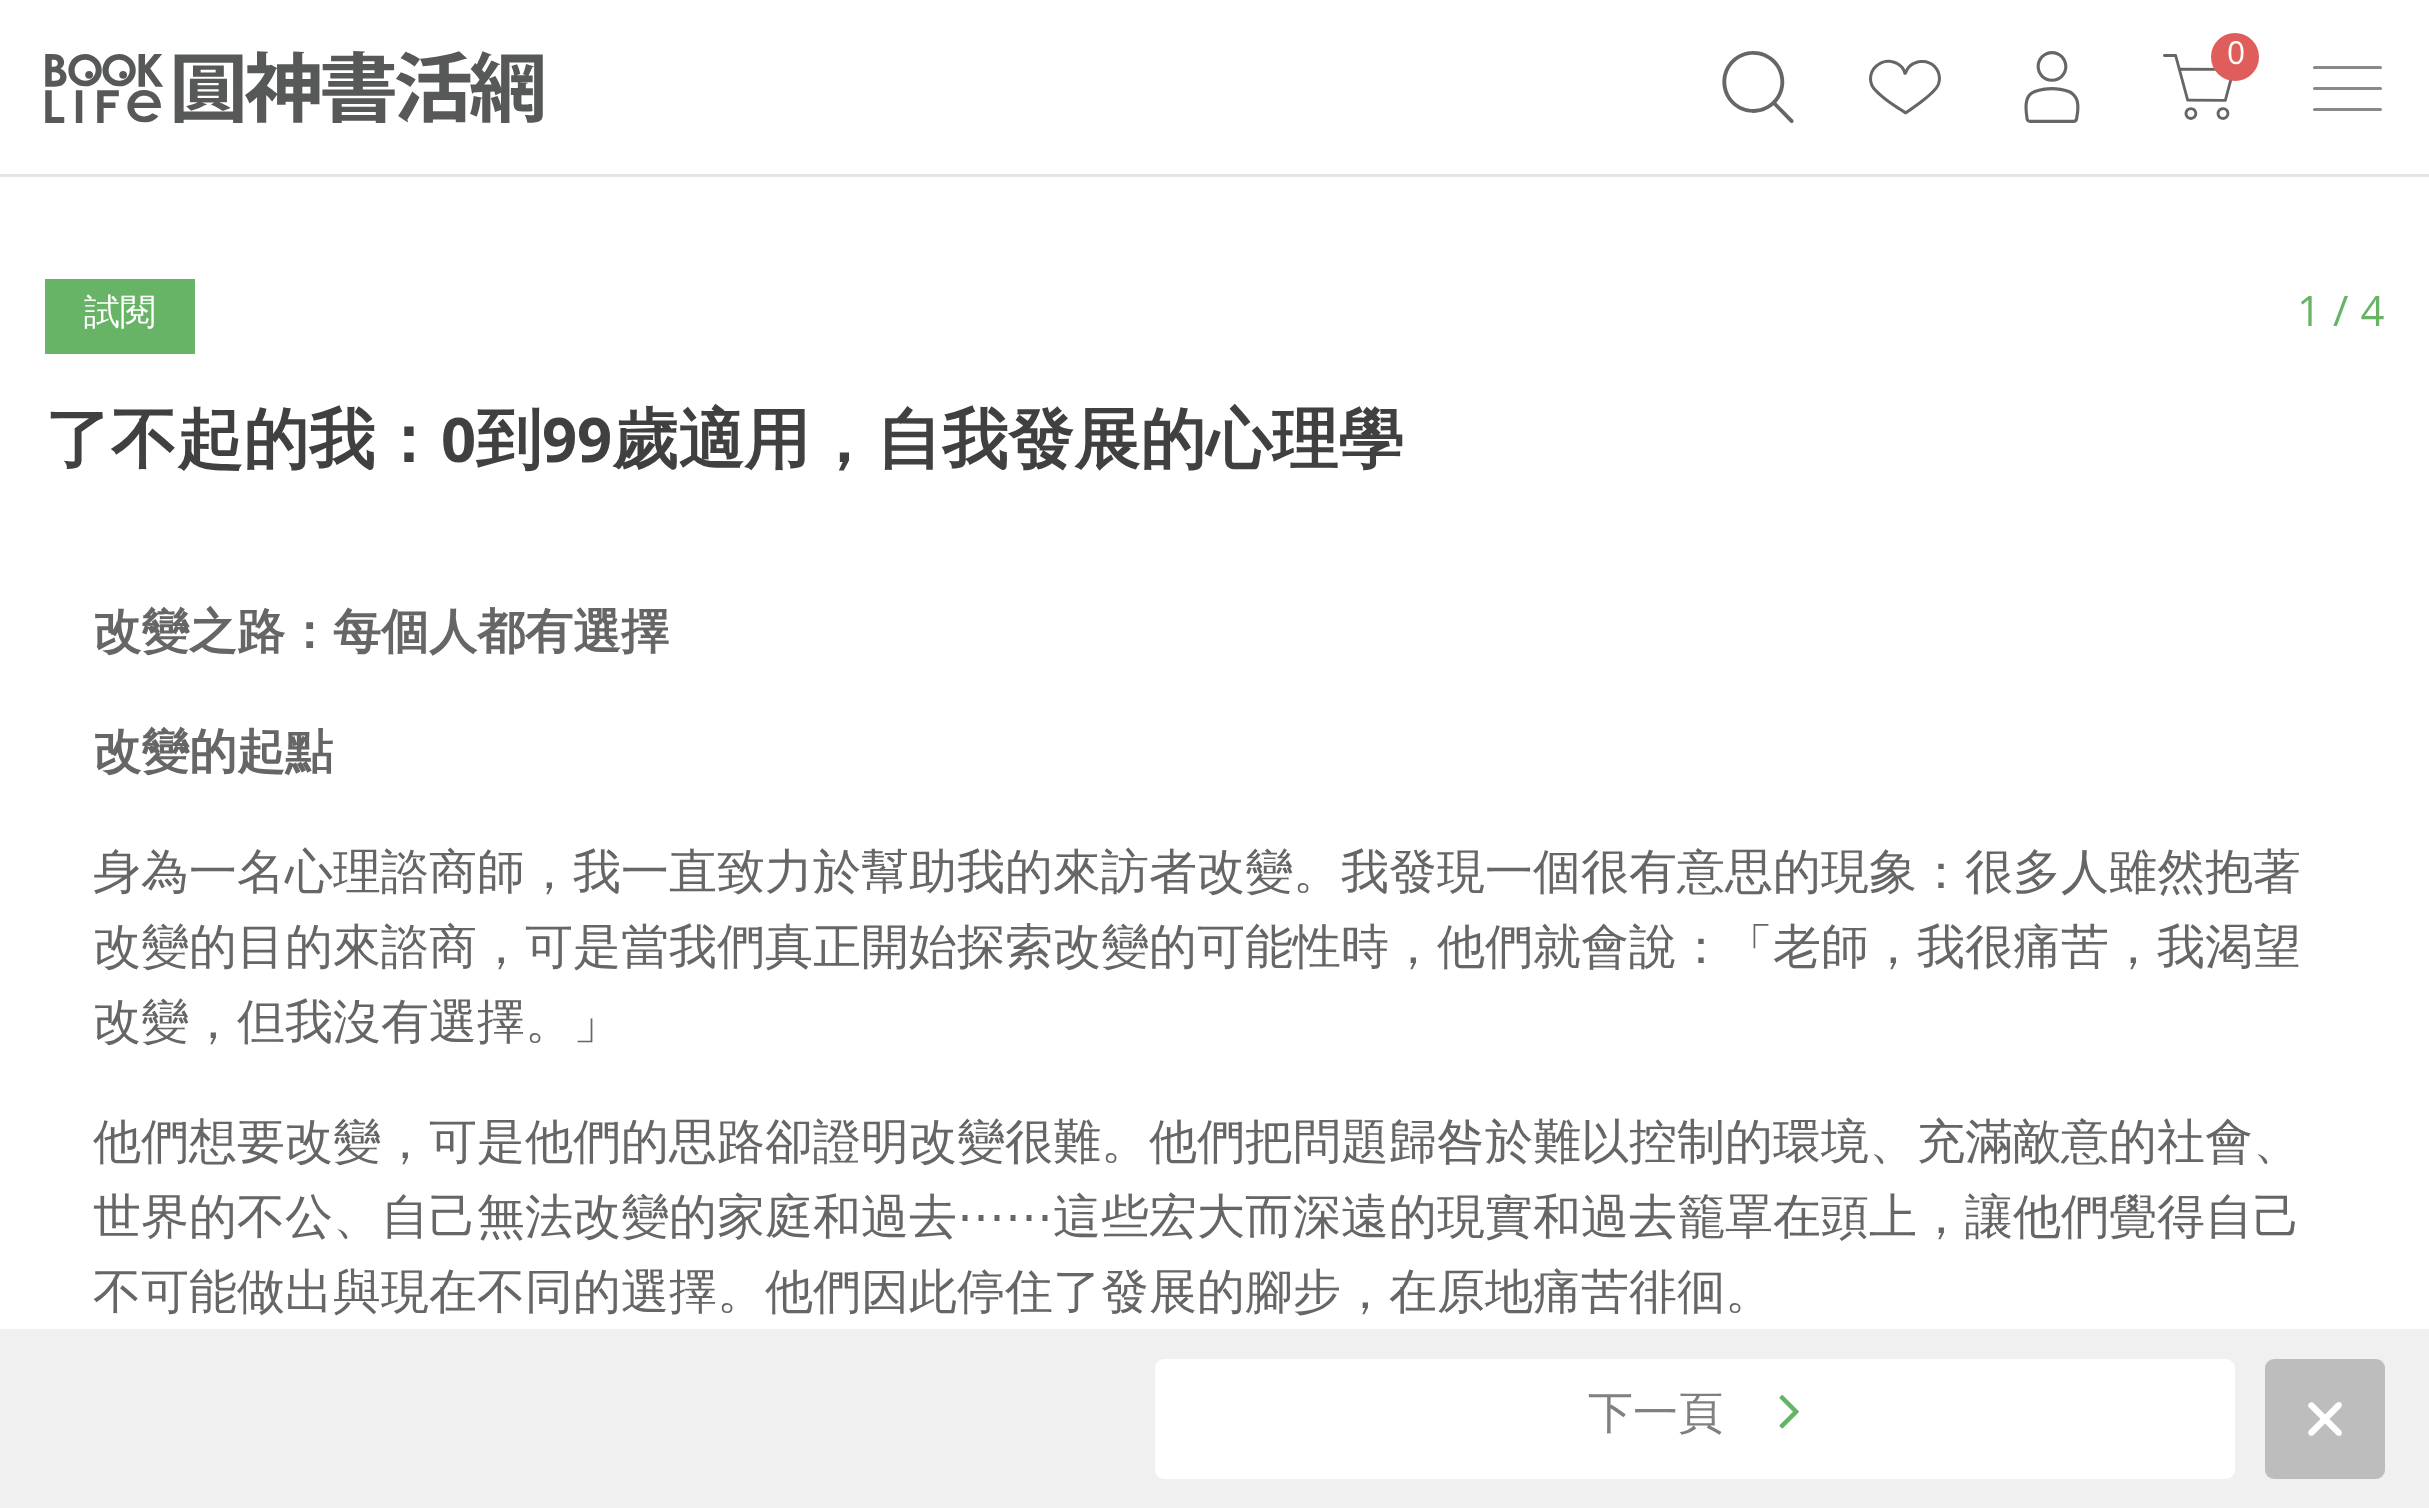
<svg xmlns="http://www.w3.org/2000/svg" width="2429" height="1508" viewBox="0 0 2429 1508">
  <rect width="100%" height="100%" fill="rgb(255,255,255)"/>
  <rect x="0" y="174" width="2429" height="3" fill="rgb(229,229,229)"/>
  <image x="45" y="51" width="498" height="72" href="pic1.png"/>
  <image x="1722" y="51" width="72" height="72" href="pic2.png"/>
  <image x="1869" y="59" width="72" height="56" href="pic3.png"/>
  <image x="2024" y="51" width="56" height="72" href="pic4.png"/>
  <image x="2163" y="54" width="70" height="66" href="pic5.png"/>
  <circle cx="2235" cy="57" r="24" fill="rgb(223,93,91)"/>
  <text x="2227" y="64" font-family="Khula" font-size="34" fill="rgb(255,255,255)">0</text>
  <rect x="2313" y="66" width="69" height="3" rx="1.5" fill="rgb(137,137,137)"/>
  <rect x="2313" y="87" width="69" height="3" rx="1.5" fill="rgb(137,137,137)"/>
  <rect x="2313" y="108" width="69" height="3" rx="1.5" fill="rgb(137,137,137)"/>
  <rect x="45" y="279" width="150" height="75" fill="rgb(103,180,103)"/>
  <text x="84" y="324" font-family="WenQuanYi Zen Hei" font-size="36" font-weight="500" fill="rgb(255,255,255)">試閱</text>
  <text x="2297" y="326" font-family="Khula" font-size="45" fill="rgb(103,180,103)">1 / 4</text>
  <text x="45" y="462" font-family="WenQuanYi Zen Hei" font-size="66" font-weight="bold" fill="rgb(64,64,64)">了不起的我：</text>
  <text x="441" y="462" font-family="Khula" font-size="66" font-weight="bold" fill="rgb(64,64,64)">0</text>
  <text x="476" y="462" font-family="WenQuanYi Zen Hei" font-size="66" font-weight="bold" fill="rgb(64,64,64)">到</text>
  <text x="542" y="462" font-family="Khula" font-size="66" font-weight="bold" fill="rgb(64,64,64)">99</text>
  <text x="612" y="462" font-family="WenQuanYi Zen Hei" font-size="66" font-weight="bold" fill="rgb(64,64,64)">歲適用，自我發展的心理學</text>
  <g font-family="WenQuanYi Zen Hei" font-size="48" font-weight="bold" fill="rgb(102,102,102)">
    <text x="93" y="648">改變之路：每個人都有選擇</text>
    <text x="93" y="768">改變的起點</text>
  </g>
  <g font-family="WenQuanYi Zen Hei" font-size="48" font-weight="500" fill="rgb(102,102,102)">
    <text>
      <tspan x="93" y="888">身為一名心理諮商師，我一直致力於幫助我的來訪者改變。我發現一個很有意思的現象：很多人雖然抱著</tspan>
      <tspan x="93" y="963">改變的目的來諮商，可是當我們真正開始探索改變的可能性時，他們就會說：「老師，我很痛苦，我渴望</tspan>
      <tspan x="93" y="1038">改變，但我沒有選擇。」</tspan>
    </text>
    <text>
      <tspan x="93" y="1158">他們想要改變，可是他們的思路卻證明改變很難。他們把問題歸咎於難以控制的環境、充滿敵意的社會、</tspan>
      <tspan x="93" y="1233">世界的不公、自己無法改變的家庭和過去</tspan>
    </text>
  </g>
  <text x="957" y="1233" font-family="DejaVu Sans" font-size="48" fill="rgb(102,102,102)">⋯⋯</text>
  <g font-family="WenQuanYi Zen Hei" font-size="48" font-weight="500" fill="rgb(102,102,102)">
    <text x="1053" y="1233">這些宏大而深遠的現實和過去籠罩在頭上，讓他們覺得自己</text>
    <text x="93" y="1308">不可能做出與現在不同的選擇。他們因此停住了發展的腳步，在原地痛苦徘徊。</text>
  </g>
  <rect x="0" y="1329" width="2429" height="179" fill="rgb(240,240,240)"/>
  <rect x="1155" y="1359" width="1080" height="120" rx="9" fill="rgb(255,255,255)"/>
  <text x="1588" y="1428" font-family="WenQuanYi Zen Hei" font-size="45" font-weight="500" fill="rgb(128,128,128)">下一頁</text>
  <image x="1779" y="1395" width="20" height="34" href="pic6.png"/>
  <rect x="2265" y="1359" width="120" height="120" rx="9" fill="rgb(189,189,189)"/>
  <path d="M2309 1430.5L2332 1407.5C2333.5 1406.5 2337 1400.5 2340.5 1402.5C2345 1405.5 2337.5 1410.5 2336.5 1412L2313 1435.5C2310 1437 2306.5 1433 2309 1430.5Z" fill="rgb(255,255,255)"/>
  <path d="M2313.5 1403L2336.5 1426C2337.5 1427.5 2343.5 1431 2341.5 1434.5C2338.5 1439 2333.5 1431.5 2332 1430.5L2308.5 1407C2307 1404 2311 1400.5 2313.5 1403Z" fill="rgb(255,255,255)"/>
</svg>
